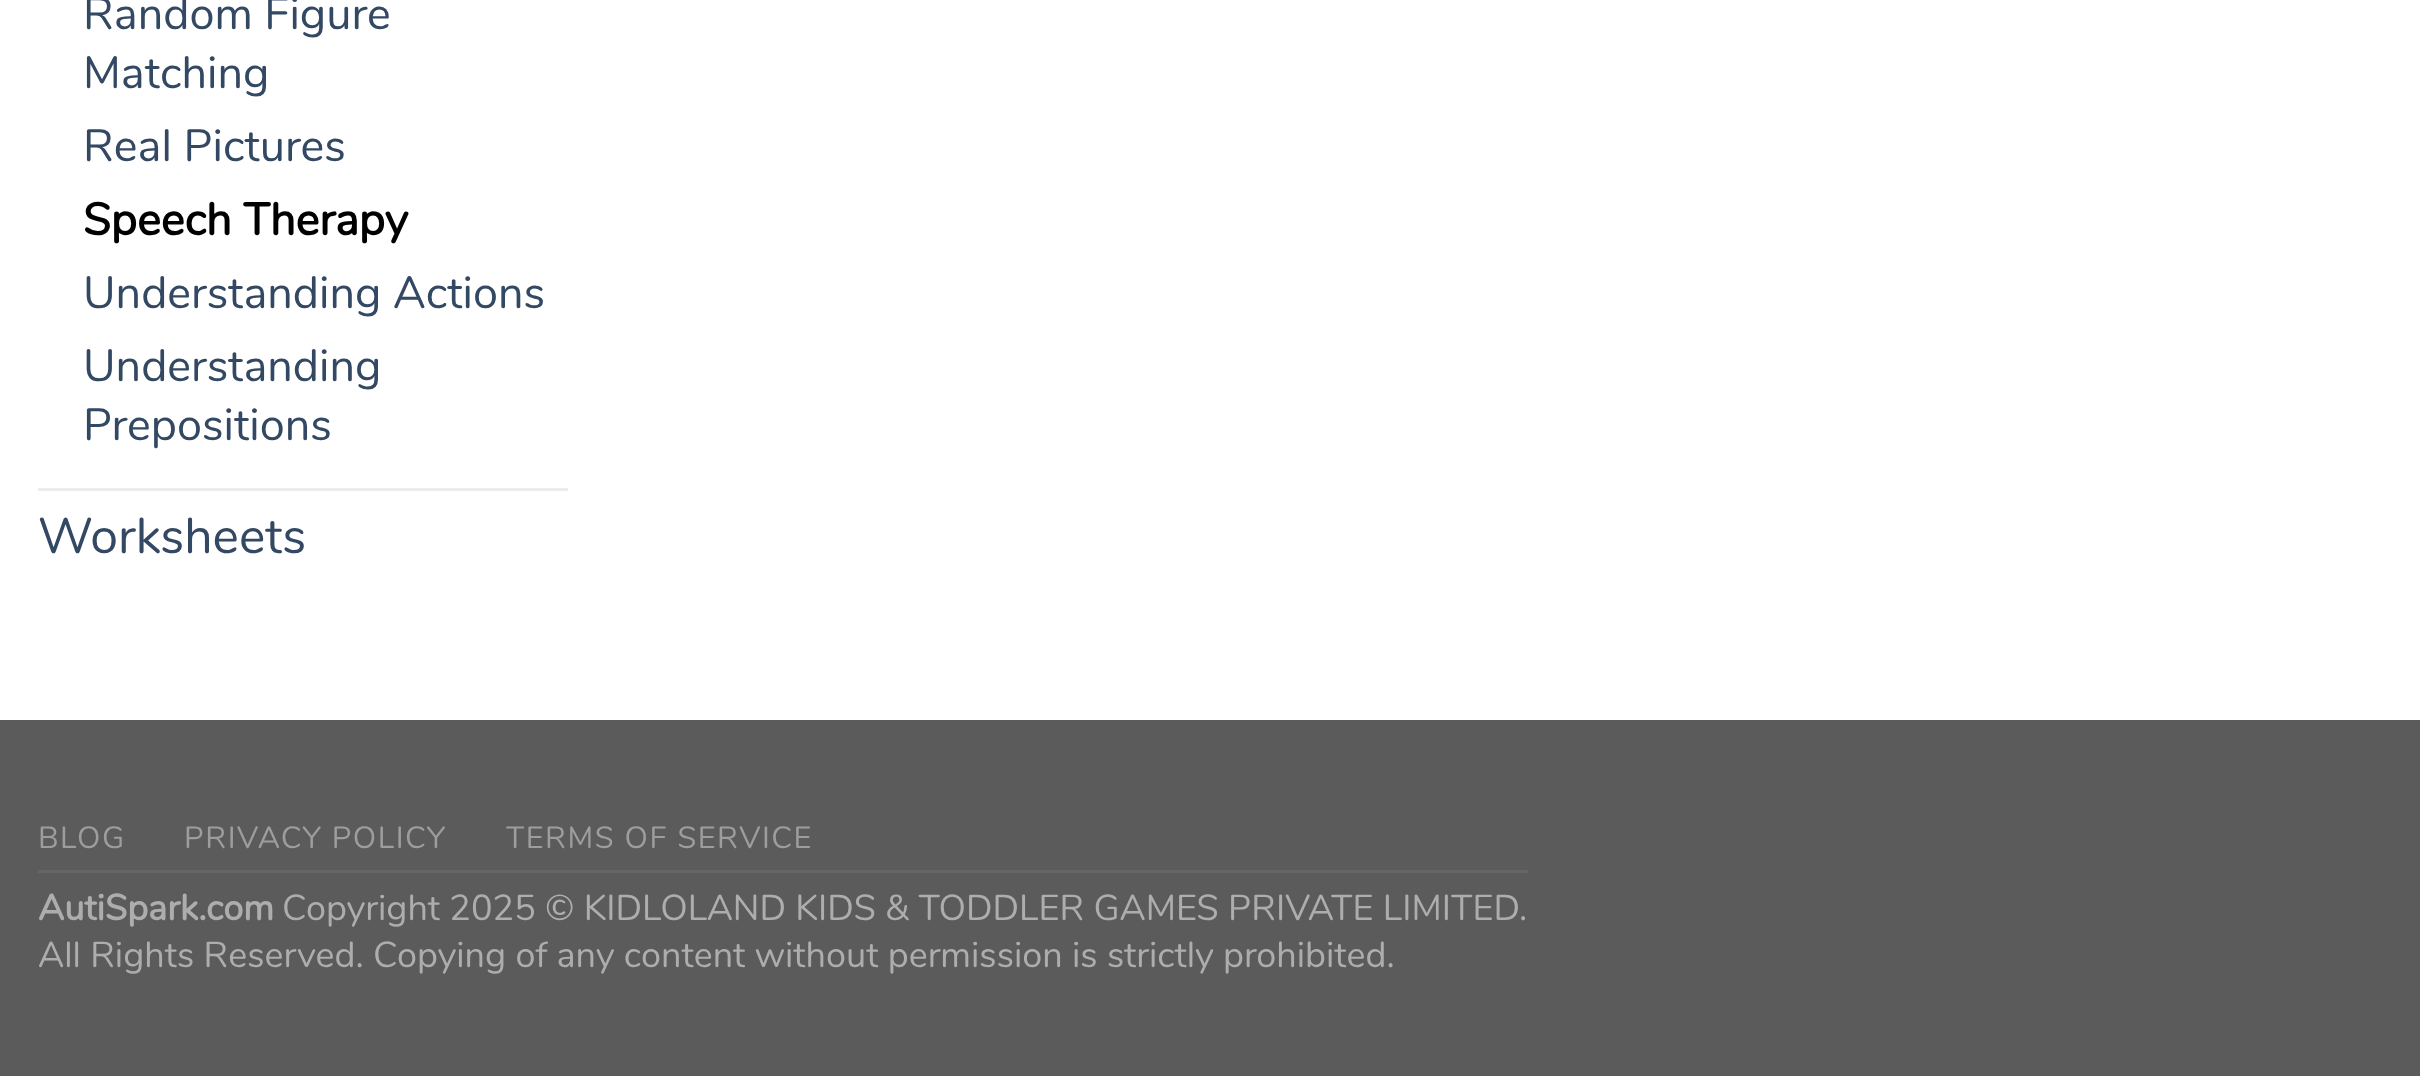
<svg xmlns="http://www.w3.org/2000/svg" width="2420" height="1076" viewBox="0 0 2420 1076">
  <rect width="100%" height="100%" fill="rgb(255,255,255)"/>
  <g font-family="Nunito" font-size="45" fill="rgb(51,72,98)">
    <text>
      <tspan x="83" y="29">Random Figure</tspan>
      <tspan x="83" y="88">Matching</tspan>
      <tspan x="83" y="161">Real Pictures</tspan>
    </text>
  </g>
  <text x="83" y="235" font-family="Nunito" font-size="45" font-weight="bold" fill="rgb(0,0,0)">Speech Therapy</text>
  <g font-family="Nunito" font-size="45" fill="rgb(51,72,98)">
    <text>
      <tspan x="83" y="308">Understanding Actions</tspan>
      <tspan x="83" y="381">Understanding</tspan>
      <tspan x="83" y="440">Prepositions</tspan>
    </text>
  </g>
  <rect x="38" y="488" width="530" height="3" fill="rgb(236,236,236)"/>
  <text x="38" y="553" font-family="Nunito" font-size="50" fill="rgb(51,72,98)">Worksheets</text>
  <rect x="0" y="720" width="2420" height="356" fill="rgb(91,91,91)"/>
  <rect x="38" y="870" width="1490" height="3" fill="rgb(101,101,101)"/>
  <g font-family="Nunito" font-size="30.6" letter-spacing="1.5" fill="rgb(157,157,157)">
    <text x="38" y="848">BLOG</text>
    <text x="184" y="848">PRIVACY POLICY</text>
    <text x="506" y="848">TERMS OF SERVICE</text>
  </g>
  <text x="38" y="920" font-family="Nunito" font-size="36" font-weight="bold" fill="rgb(173,173,173)">AutiSpark.com</text>
  <g font-family="Nunito" font-size="36" fill="rgb(173,173,173)">
    <text x="282" y="920">Copyright 2025 © KIDLOLAND KIDS &amp; TODDLER GAMES PRIVATE LIMITED.</text>
    <text x="38" y="967">All Rights Reserved. Copying of any content without permission is strictly prohibited.</text>
  </g>
</svg>
